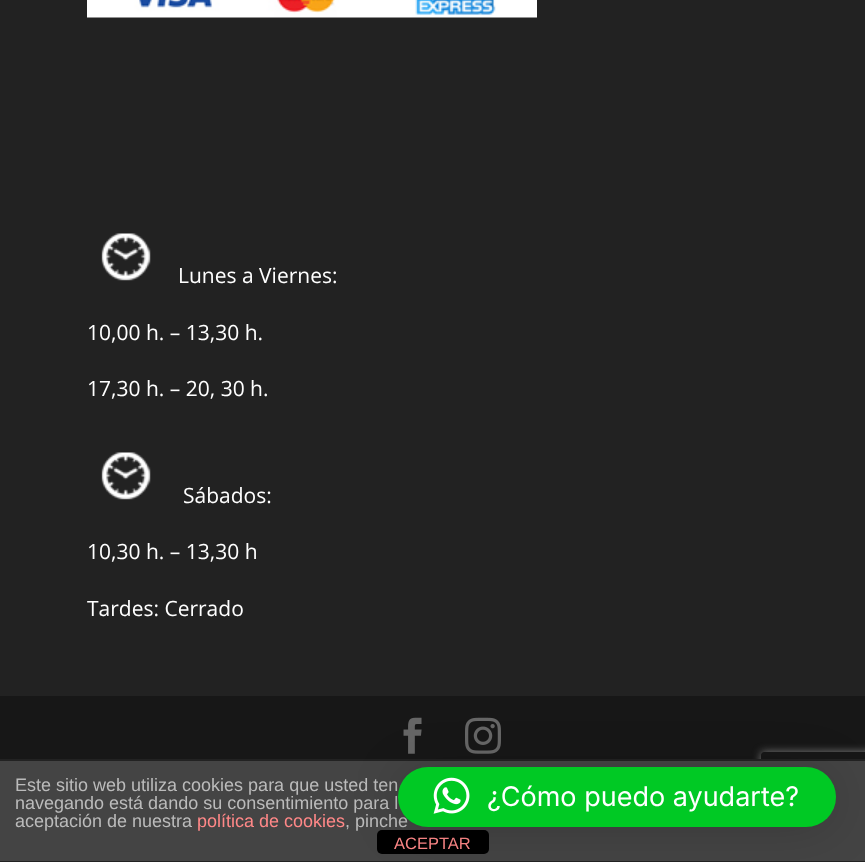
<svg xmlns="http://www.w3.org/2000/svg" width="865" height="862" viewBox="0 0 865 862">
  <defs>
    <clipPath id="clip1"><path d="M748 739H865V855H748ZM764 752H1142C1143.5 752 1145 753.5 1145 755V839C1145 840.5 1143.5 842 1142 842H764C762.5 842 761 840.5 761 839V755C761 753.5 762.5 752 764 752Z" clip-rule="evenodd"/></clipPath>
  </defs>
  <rect width="100%" height="100%" fill="rgb(34,34,34)"/>
  <image x="87" y="0" width="450" height="18" href="pic1.png"/>
  <image x="101" y="233" width="50" height="48" href="pic2.png"/>
  <g font-family="Open Sans" font-size="21" fill="rgb(255,255,255)">
    <text x="178" y="283">Lunes a Viernes:</text>
    <text x="87" y="340">10,00 h. – 13,30 h.</text>
    <text x="87" y="396">17,30 h. – 20, 30 h.</text>
  </g>
  <image x="101" y="452" width="50" height="48" href="pic2.png"/>
  <g font-family="Open Sans" font-size="21" fill="rgb(255,255,255)">
    <text x="183" y="503">Sábados:</text>
    <text x="87" y="559">10,30 h. – 13,30 h</text>
    <text x="87" y="616">Tardes: Cerrado</text>
  </g>
  <rect x="0" y="696" width="865" height="63" fill="rgb(23,23,23)"/>
  <image x="403" y="717" width="19" height="37" href="pic3.png"/>
  <image x="465" y="717" width="36" height="37" href="pic4.png"/>
  <g clip-path="url(#clip1)">
    <rect x="761" y="752" width="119" height="90" rx="3" fill="rgb(128,128,128)" filter="blur(4px)"/>
  </g>
  <rect x="0" y="761" width="865" height="100" fill="rgb(68,68,68)"/>
  <rect x="753" y="759" width="8" height="2" fill="rgb(34,34,34)"/>
  <g font-family="Liberation Sans" font-size="18" fill="rgb(187,187,187)">
    <text>
      <tspan x="15" y="791">Este sitio web utiliza cookies para que usted ten</tspan>
      <tspan x="15" y="809">navegando está dando su consentimiento para l</tspan>
      <tspan x="15" y="827">aceptación de nuestra</tspan>
    </text>
  </g>
  <text x="197" y="827" font-family="Liberation Sans" font-size="18" fill="rgb(255,136,136)">política de cookies</text>
  <rect x="377" y="830" width="112" height="24" rx="5" fill="rgb(0,0,0)"/>
  <text x="345" y="827" font-family="Liberation Sans" font-size="18" fill="rgb(187,187,187)">, pinche</text>
  <text x="394" y="849" font-family="Liberation Sans" font-size="16.5" fill="rgb(255,136,136)">ACEPTAR</text>
  <rect x="398" y="770" width="438" height="60" rx="30" fill="rgba(0,0,0,0.16)" filter="blur(24px)"/>
  <rect x="398" y="767" width="438" height="60" rx="30" fill="rgb(0,201,36)"/>
  <image x="433" y="777" width="37" height="37" href="pic5.png"/>
  <text x="487" y="806" font-family="Inter" font-size="27" fill="rgb(255,255,255)">¿Cómo puedo ayudarte?</text>
</svg>
